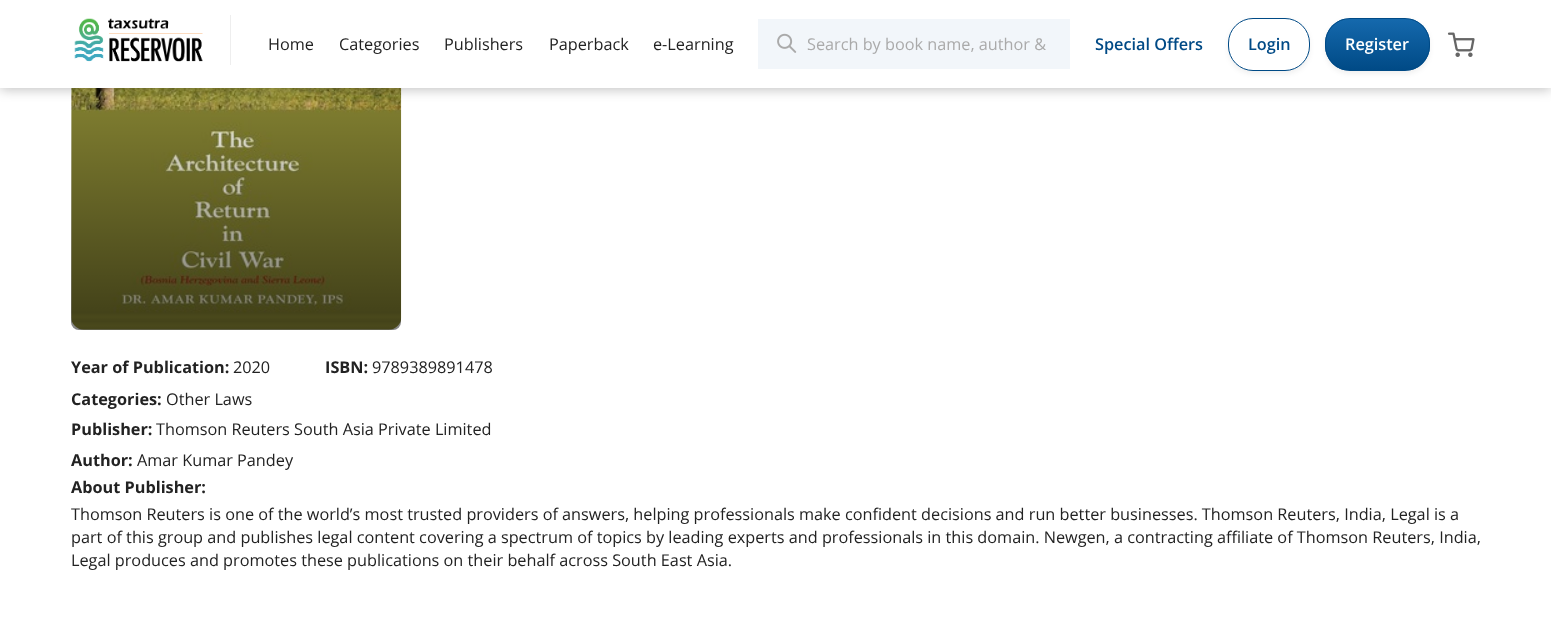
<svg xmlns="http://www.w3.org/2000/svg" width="1551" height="620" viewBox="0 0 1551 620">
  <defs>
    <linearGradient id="g1" gradientUnits="userSpaceOnUse" x1="236" y1="-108" x2="236" y2="330"><stop offset="0" stop-color="rgb(0,0,0)" stop-opacity="0"/><stop offset="0.41" stop-color="rgb(0,0,0)" stop-opacity="0"/><stop offset="0.96" stop-color="rgb(0,0,0)" stop-opacity="0.5"/><stop offset="0.97" stop-color="rgb(0,0,0)" stop-opacity="0.46"/><stop offset="0.98" stop-color="rgb(0,0,0)" stop-opacity="0.5"/><stop offset="0.99" stop-color="rgb(0,0,0)" stop-opacity="0.46"/><stop offset="1" stop-color="rgb(0,0,0)" stop-opacity="0.5"/></linearGradient>
    <clipPath id="clip1"><rect x="1325" y="18" width="105" height="53" rx="25"/></clipPath>
    <linearGradient id="g2" gradientUnits="userSpaceOnUse" x1="1378" y1="19" x2="1378" y2="70"><stop offset="0" stop-color="rgb(21,105,173)"/><stop offset="1" stop-color="rgb(0,74,134)"/></linearGradient>
  </defs>
  <rect width="100%" height="100%" fill="rgb(255,255,255)"/>
  <image x="71" y="88" width="331" height="242" href="pic4.png"/>
  <rect x="71" y="-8" width="330" height="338" rx="8" fill="url(#g1)"/>
  <rect x="0" y="3" width="1551" height="87" fill="rgba(0,0,0,0.23)" filter="blur(6px)"/>
  <rect x="0" y="0" width="1551" height="88" fill="rgb(255,255,255)"/>
  <image x="74" y="18" width="129" height="44" href="pic1.png"/>
  <rect x="230" y="15" width="1" height="50" fill="rgb(238,238,238)"/>
  <g font-family="Open Sans" font-size="16.25" fill="rgb(34,34,34)">
    <text x="268" y="50">Home</text>
    <text x="339" y="50">Categories</text>
    <text x="444" y="50">Publishers</text>
    <text x="549" y="50">Paperback</text>
    <text x="653" y="50">e-Learning</text>
  </g>
  <rect x="758" y="19" width="312" height="50" fill="rgb(242,246,250)"/>
  <image x="777" y="33" width="20" height="20" href="pic2.png"/>
  <text x="807" y="50" font-family="Open Sans" font-size="16.25" fill="rgb(170,170,170)">Search by book name, author &amp;</text>
  <text x="1095" y="50" font-family="Open Sans" font-size="16.25" font-weight="600" fill="rgb(0,74,134)">Special Offers</text>
  <rect x="1228" y="20" width="82" height="54" rx="25" fill="rgba(0,0,0,0.06)" filter="blur(2.5px)"/>
  <rect x="1228.5" y="18.5" width="81" height="52" rx="24.5" fill="rgb(255,255,255)" stroke="rgb(0,74,134)"/>
  <text x="1248" y="50" font-family="Open Sans" font-size="16.25" font-weight="600" fill="rgb(0,74,134)">Login</text>
  <rect x="1325" y="20" width="105" height="54" rx="25" fill="rgba(0,0,0,0.06)" filter="blur(2.5px)"/>
  <g clip-path="url(#clip1)">
    <rect x="1325" y="19" width="105" height="51" fill="url(#g2)"/>
  </g>
  <rect x="1325.5" y="18.5" width="104" height="52" rx="24.5" fill="none" stroke="rgb(0,74,134)"/>
  <text x="1345" y="50" font-family="Open Sans" font-size="16.25" font-weight="600" fill="rgb(255,255,255)">Register</text>
  <image x="1447" y="32" width="28" height="25" href="pic3.png"/>
  <text x="71" y="373" font-family="Open Sans" font-size="16.25" font-weight="bold" fill="rgb(34,34,34)">Year of Publication:</text>
  <text x="233" y="373" font-family="Open Sans" font-size="16.25" fill="rgb(34,34,34)">2020</text>
  <text x="325" y="373" font-family="Open Sans" font-size="16.25" font-weight="bold" fill="rgb(34,34,34)">ISBN:</text>
  <text x="372" y="373" font-family="Open Sans" font-size="16.25" fill="rgb(34,34,34)">9789389891478</text>
  <text x="71" y="405" font-family="Open Sans" font-size="16.25" font-weight="bold" fill="rgb(34,34,34)">Categories:</text>
  <text x="166" y="405" font-family="Open Sans" font-size="16.25" fill="rgb(34,34,34)">Other Laws</text>
  <text x="71" y="435" font-family="Open Sans" font-size="16.25" font-weight="bold" fill="rgb(34,34,34)">Publisher:</text>
  <text x="156" y="435" font-family="Open Sans" font-size="16.25" fill="rgb(34,34,34)">Thomson Reuters South Asia Private Limited</text>
  <text x="71" y="466" font-family="Open Sans" font-size="16.25" font-weight="bold" fill="rgb(34,34,34)">Author:</text>
  <text x="137" y="466" font-family="Open Sans" font-size="16.25" fill="rgb(34,34,34)">Amar Kumar Pandey</text>
  <text x="71" y="493" font-family="Open Sans" font-size="16.25" font-weight="bold" fill="rgb(34,34,34)">About Publisher:</text>
  <g font-family="Open Sans" font-size="16.25" fill="rgb(34,34,34)">
    <text>
      <tspan x="71" y="520">Thomson Reuters is one of the world’s most trusted providers of answers, helping professionals make confident decisions and run better businesses. Thomson Reuters, India, Legal is a</tspan>
      <tspan x="71" y="543">part of this group and publishes legal content covering a spectrum of topics by leading experts and professionals in this domain. Newgen, a contracting affiliate of Thomson Reuters, India,</tspan>
      <tspan x="71" y="566">Legal produces and promotes these publications on their behalf across South East Asia.</tspan>
    </text>
  </g>
</svg>
